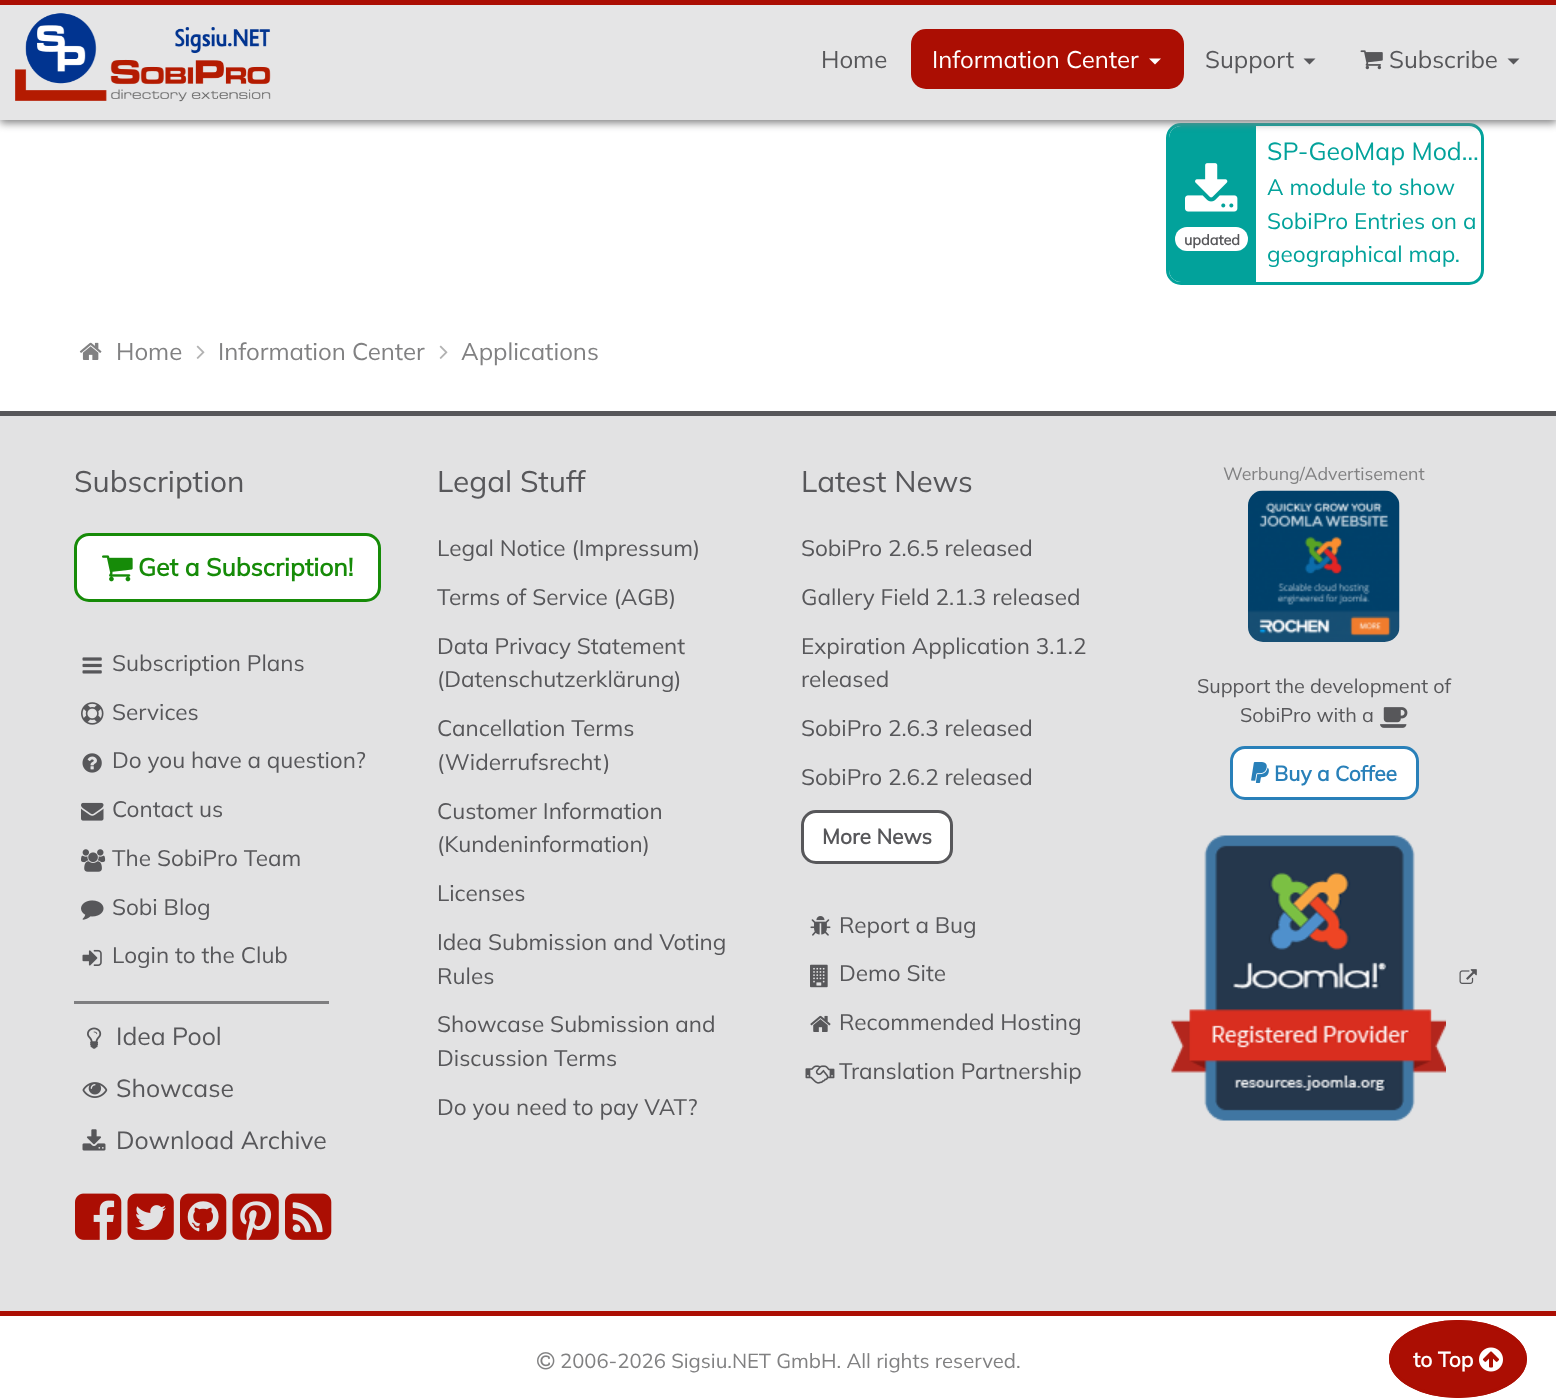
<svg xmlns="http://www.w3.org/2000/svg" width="1556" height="1400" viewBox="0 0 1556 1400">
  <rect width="100%" height="100%" fill="rgb(255,255,255)"/>
  <rect x="1167.5" y="124.5" width="315" height="159" rx="13.5" fill="none" stroke="rgb(2,162,155)" stroke-width="3"/>
  <path d="M1181 126H1256V282H1181C1174.5 282 1169 276.5 1169 270V138C1169 131.5 1174.5 126 1181 126Z" fill="rgb(2,162,155)"/>
  <rect x="0" y="3" width="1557" height="120" fill="rgb(129,129,130)" filter="blur(4px)"/>
  <rect x="0" y="5" width="1556" height="115" fill="rgb(229,229,230)"/>
  <rect x="0" y="0" width="1556" height="5" fill="rgb(171,14,3)"/>
  <image x="15" y="13" width="256" height="89" href="pic1.png"/>
  <text x="821" y="68" font-family="Mulish" font-size="24" font-weight="200" fill="rgb(87,87,90)">Home</text>
  <rect x="911" y="29" width="273" height="60" rx="15" fill="rgb(171,14,3)"/>
  <text x="932" y="68" font-family="Mulish" font-size="24" font-weight="200" fill="rgb(255,255,255)">Information Center</text>
  <path d="M1149 58.5H1161L1155 64.5Z" fill="rgb(255,255,255)"/>
  <text x="1205" y="68" font-family="Mulish" font-size="24" font-weight="200" fill="rgb(87,87,90)">Support</text>
  <path d="M1303.5 58.5H1315.5L1309.5 64.5Z" fill="rgb(87,87,90)"/>
  <image x="1360" y="50" width="23" height="20" href="pic2.png"/>
  <text x="1389" y="68" font-family="Mulish" font-size="24" font-weight="200" fill="rgb(87,87,90)">Subscribe</text>
  <path d="M1507.5 58.5H1519.5L1513.5 64.5Z" fill="rgb(87,87,90)"/>
  <image x="1185" y="163" width="53" height="49" href="pic3.png"/>
  <rect x="1175" y="227" width="73" height="24" rx="12" fill="rgb(255,255,255)"/>
  <text x="1184" y="245" font-family="Mulish" font-size="14.5" font-weight="bold" fill="rgb(87,87,90)">updated</text>
  <text x="1267" y="160" font-family="Mulish" font-size="24.75" font-weight="200" fill="rgb(2,162,155)">SP-GeoMap Mod…</text>
  <g font-family="Mulish" font-size="22.5" font-weight="200" fill="rgb(2,162,155)">
    <text>
      <tspan x="1267" y="195">A module to show</tspan>
      <tspan x="1267" y="229">SobiPro Entries on a</tspan>
      <tspan x="1267" y="262">geographical map.</tspan>
    </text>
  </g>
  <image x="79" y="342" width="23" height="18" href="pic4.png"/>
  <text x="116" y="360" font-family="Mulish" font-size="24" font-weight="200" fill="rgb(129,129,130)">Home</text>
  <image x="196" y="345" width="9" height="14" href="pic5.png"/>
  <text x="218" y="360" font-family="Mulish" font-size="24" font-weight="200" fill="rgb(129,129,130)">Information Center</text>
  <image x="439" y="345" width="9" height="14" href="pic5.png"/>
  <text x="461" y="360" font-family="Mulish" font-size="24" font-weight="200" fill="rgb(129,129,130)">Applications</text>
  <rect x="0" y="411" width="1556" height="5" fill="rgb(87,87,90)"/>
  <rect x="0" y="416" width="1556" height="895" fill="rgb(226,226,227)"/>
  <text x="74" y="492" font-family="Mulish" font-size="29.75" font-weight="200" fill="rgb(87,87,90)">Subscription</text>
  <rect x="75.5" y="534.5" width="304" height="66" rx="13.5" fill="rgb(255,255,255)" stroke="rgb(22,139,8)" stroke-width="3"/>
  <image x="102" y="555" width="31" height="27" href="pic6.png"/>
  <text x="138" y="576" font-family="Mulish" font-size="24.75" font-weight="bold" fill="rgb(22,139,8)">Get a Subscription!</text>
  <image x="82" y="657" width="20" height="17" href="pic7.png"/>
  <text x="112" y="671" font-family="Mulish" font-size="22.5" font-weight="200" fill="rgb(87,87,90)">Subscription Plans</text>
  <image x="81" y="702" width="23" height="23" href="pic8.png"/>
  <text x="112" y="720" font-family="Mulish" font-size="22.5" font-weight="200" fill="rgb(87,87,90)">Services</text>
  <image x="82" y="753" width="20" height="20" href="pic9.png"/>
  <text x="112" y="768" font-family="Mulish" font-size="22.5" font-weight="200" fill="rgb(87,87,90)">Do you have a question?</text>
  <image x="81" y="802" width="23" height="19" href="pic10.png"/>
  <text x="112" y="817" font-family="Mulish" font-size="22.5" font-weight="200" fill="rgb(87,87,90)">Contact us</text>
  <image x="81" y="849" width="25" height="23" href="pic11.png"/>
  <text x="112" y="866" font-family="Mulish" font-size="22.5" font-weight="200" fill="rgb(87,87,90)">The SobiPro Team</text>
  <image x="81" y="900" width="23" height="20" href="pic12.png"/>
  <text x="112" y="915" font-family="Mulish" font-size="22.5" font-weight="200" fill="rgb(87,87,90)">Sobi Blog</text>
  <image x="82" y="949" width="20" height="17" href="pic13.png"/>
  <text x="112" y="963" font-family="Mulish" font-size="22.5" font-weight="200" fill="rgb(87,87,90)">Login to the Club</text>
  <rect x="74" y="1001" width="255" height="3" fill="rgb(126,126,128)"/>
  <image x="87" y="1027" width="15" height="22" href="pic14.png"/>
  <text x="116" y="1045" font-family="Mulish" font-size="24.75" font-weight="200" fill="rgb(87,87,90)">Idea Pool</text>
  <image x="82" y="1082" width="26" height="16" href="pic15.png"/>
  <text x="116" y="1097" font-family="Mulish" font-size="24.75" font-weight="200" fill="rgb(87,87,90)">Showcase</text>
  <image x="82" y="1129" width="24" height="22" href="pic16.png"/>
  <text x="116" y="1149" font-family="Mulish" font-size="24.75" font-weight="200" fill="rgb(87,87,90)">Download Archive</text>
  <image x="75" y="1193" width="47" height="47" href="pic17.png"/>
  <image x="127" y="1193" width="47" height="47" href="pic18.png"/>
  <image x="180" y="1193" width="47" height="47" href="pic19.png"/>
  <image x="232" y="1193" width="47" height="47" href="pic20.png"/>
  <image x="285" y="1193" width="47" height="47" href="pic21.png"/>
  <text x="437" y="492" font-family="Mulish" font-size="29.75" font-weight="200" fill="rgb(87,87,90)">Legal Stuff</text>
  <g font-family="Mulish" font-size="22.5" font-weight="200" fill="rgb(87,87,90)">
    <text x="437" y="556">Legal Notice (Impressum)</text>
    <text x="437" y="605">Terms of Service (AGB)</text>
    <text>
      <tspan x="437" y="654">Data Privacy Statement</tspan>
      <tspan x="437" y="687">(Datenschutzerklärung)</tspan>
    </text>
    <text>
      <tspan x="437" y="736">Cancellation Terms</tspan>
      <tspan x="437" y="770">(Widerrufsrecht)</tspan>
    </text>
    <text>
      <tspan x="437" y="819">Customer Information</tspan>
      <tspan x="437" y="852">(Kundeninformation)</tspan>
    </text>
    <text x="437" y="901">Licenses</text>
    <text>
      <tspan x="437" y="950">Idea Submission and Voting</tspan>
      <tspan x="437" y="984">Rules</tspan>
    </text>
    <text>
      <tspan x="437" y="1032">Showcase Submission and</tspan>
      <tspan x="437" y="1066">Discussion Terms</tspan>
    </text>
    <text x="437" y="1115">Do you need to pay VAT?</text>
  </g>
  <text x="801" y="492" font-family="Mulish" font-size="29.75" font-weight="200" fill="rgb(87,87,90)">Latest News</text>
  <g font-family="Mulish" font-size="22.5" font-weight="200" fill="rgb(87,87,90)">
    <text x="801" y="556">SobiPro 2.6.5 released</text>
    <text x="801" y="605">Gallery Field 2.1.3 released</text>
    <text>
      <tspan x="801" y="654">Expiration Application 3.1.2</tspan>
      <tspan x="801" y="687">released</tspan>
    </text>
    <text x="801" y="736">SobiPro 2.6.3 released</text>
    <text x="801" y="785">SobiPro 2.6.2 released</text>
  </g>
  <rect x="802.5" y="811.5" width="149" height="51" rx="13.5" fill="rgb(255,255,255)" stroke="rgb(87,87,90)" stroke-width="3"/>
  <text x="822" y="844" font-family="Mulish" font-size="21" font-weight="bold" fill="rgb(87,87,90)">More News</text>
  <image x="810" y="916" width="21" height="20" href="pic22.png"/>
  <text x="839" y="933" font-family="Mulish" font-size="22.5" font-weight="200" fill="rgb(87,87,90)">Report a Bug</text>
  <image x="810" y="964" width="18" height="24" href="pic23.png"/>
  <text x="839" y="981" font-family="Mulish" font-size="22.5" font-weight="200" fill="rgb(87,87,90)">Demo Site</text>
  <image x="810" y="1015" width="21" height="17" href="pic24.png"/>
  <text x="839" y="1030" font-family="Mulish" font-size="22.5" font-weight="200" fill="rgb(87,87,90)">Recommended Hosting</text>
  <image x="805" y="1065" width="30" height="19" href="pic25.png"/>
  <text x="839" y="1079" font-family="Mulish" font-size="22.5" font-weight="200" fill="rgb(87,87,90)">Translation Partnership</text>
  <text x="1223" y="480" font-family="Mulish" font-size="17.75" font-weight="200" fill="rgb(129,129,130)">Werbung/Advertisement</text>
  <image x="1248" y="490" width="152" height="152" href="pic26.png"/>
  <g font-family="Mulish" font-size="19.8" font-weight="200" fill="rgb(87,87,90)">
    <text x="1197" y="693">Support the development of</text>
    <text x="1240" y="722">SobiPro with a</text>
  </g>
  <image x="1380" y="707" width="28" height="21" href="pic27.png"/>
  <rect x="1231.5" y="747.5" width="186" height="51" rx="13.5" fill="rgb(255,255,255)" stroke="rgb(41,128,185)" stroke-width="3"/>
  <image x="1251" y="762" width="18" height="21" href="pic28.png"/>
  <text x="1274" y="781" font-family="Mulish" font-size="21" font-weight="bold" fill="rgb(41,128,185)">Buy a Coffee</text>
  <image x="1171" y="835" width="275" height="286" href="pic29.png"/>
  <image x="1459" y="969" width="18" height="15" href="pic30.png"/>
  <rect x="0" y="1311" width="1556" height="5" fill="rgb(171,14,3)"/>
  <image x="537" y="1352" width="18" height="18" href="pic31.png"/>
  <text x="560" y="1368" font-family="Mulish" font-size="20.25" font-weight="200" fill="rgb(129,129,130)">2006-2026 Sigsiu.NET GmbH. All rights reserved.</text>
  <ellipse cx="1458" cy="1359" rx="69" ry="39" fill="rgb(171,14,3)"/>
  <path d="M1458 1321.5C1495.5 1321.5 1525.5 1338.5 1525.5 1359C1525.5 1379.5 1495.5 1396.5 1458 1396.5C1420.5 1396.5 1390.5 1379.5 1390.5 1359C1390.5 1338.5 1420.5 1321.5 1458 1321.5Z" fill="none" stroke="rgb(171,14,3)" stroke-width="3"/>
  <text x="1413" y="1367" font-family="Mulish" font-size="21" font-weight="bold" fill="rgb(255,255,255)">to Top</text>
  <image x="1479" y="1347" width="24" height="25" href="pic32.png"/>
</svg>
